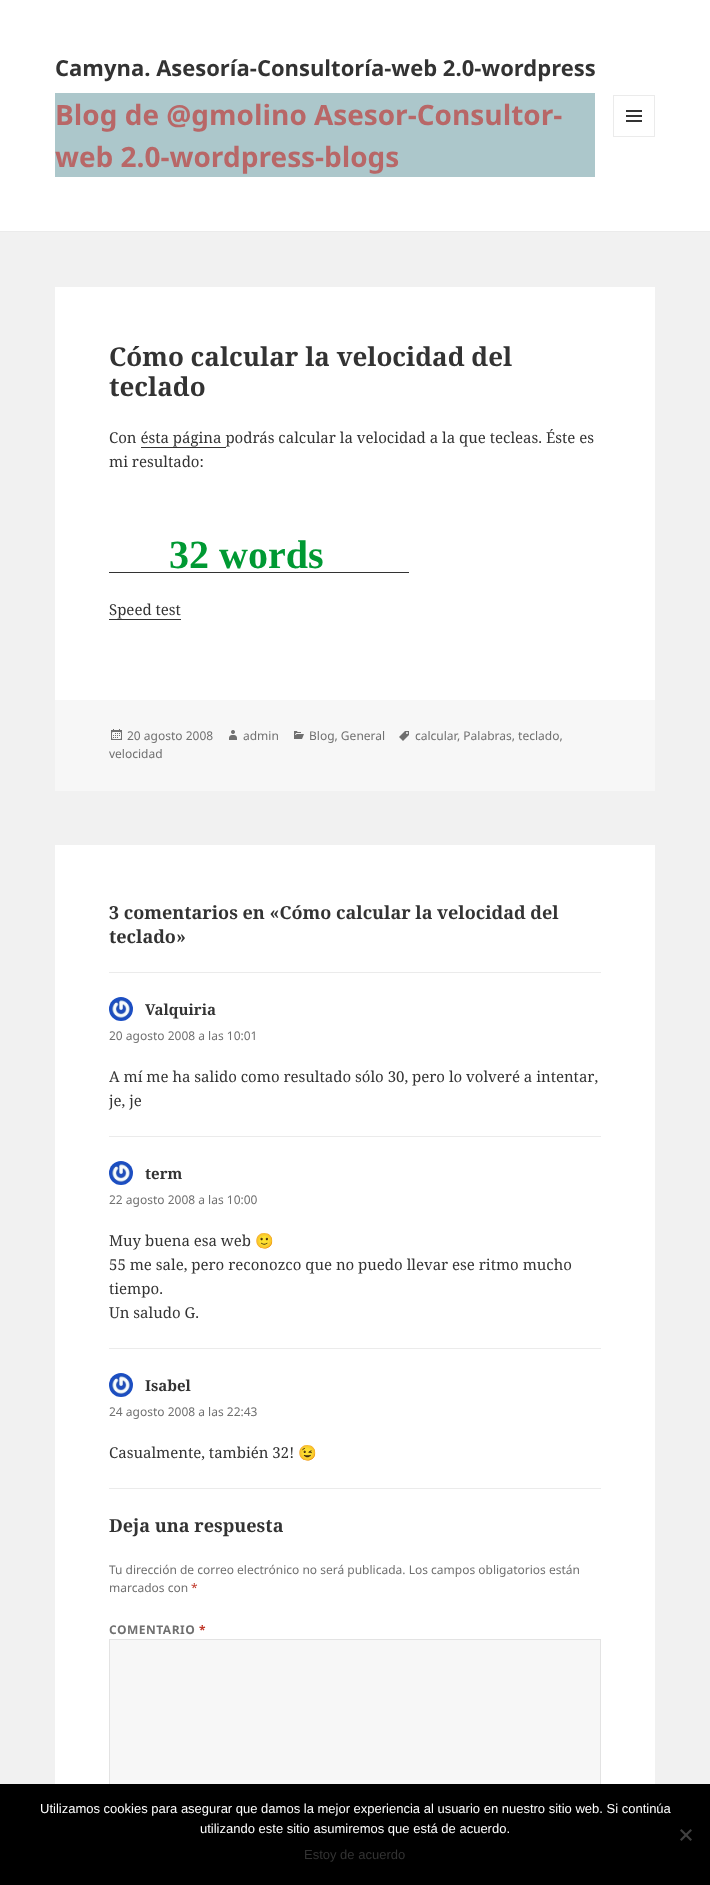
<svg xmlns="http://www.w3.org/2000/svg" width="710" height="1885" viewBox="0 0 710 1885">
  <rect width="100%" height="100%" fill="rgb(241,241,241)"/>
  <rect x="0" y="0" width="710" height="231" fill="rgb(255,255,255)"/>
  <rect x="0" y="231" width="710" height="1" fill="rgb(235,235,235)"/>
  <text x="55" y="76" font-family="Noto Sans" font-size="22" font-weight="bold" fill="rgb(51,51,51)">Camyna. Asesoría-Consultoría-web 2.0-wordpress</text>
  <rect x="55" y="93" width="540" height="84" fill="rgb(172,199,203)"/>
  <g font-family="Noto Sans" font-size="28" font-weight="bold" fill="rgb(184,103,103)">
    <text>
      <tspan x="55" y="125">Blog de @gmolino Asesor-Consultor-</tspan>
      <tspan x="55" y="167">web 2.0-wordpress-blogs</tspan>
    </text>
  </g>
  <rect x="613.5" y="95.5" width="41" height="41" fill="none" stroke="rgb(235,235,235)"/>
  <image x="626" y="110" width="16" height="12" href="pic1.png"/>
  <rect x="55" y="287" width="600" height="413" fill="rgb(255,255,255)"/>
  <g font-family="Noto Serif" font-size="26" font-weight="bold" fill="rgb(51,51,51)">
    <text>
      <tspan x="109" y="366">Cómo calcular la velocidad del</tspan>
      <tspan x="109" y="396">teclado</tspan>
    </text>
  </g>
  <text x="109" y="443" font-family="Noto Serif" font-size="15" fill="rgb(51,51,51)">Con ésta página podrás calcular la velocidad a la que tecleas. Éste es</text>
  <rect x="141" y="447" width="85" height="1" fill="rgb(51,51,51)"/>
  <text x="109" y="467" font-family="Noto Serif" font-size="15" fill="rgb(51,51,51)">mi resultado:</text>
  <rect x="109" y="572" width="300" height="1" fill="rgb(51,51,51)"/>
  <text x="169" y="568" font-family="Liberation Serif" font-size="40" font-weight="bold" fill="rgb(0,153,51)">32 words</text>
  <text x="109" y="615" font-family="Noto Serif" font-size="15" fill="rgb(51,51,51)">Speed test</text>
  <rect x="109" y="619" width="72" height="1" fill="rgb(51,51,51)"/>
  <rect x="55" y="700" width="600" height="91" fill="rgb(247,247,247)"/>
  <image x="399" y="731" width="10" height="10" href="pic2.png"/>
  <g font-family="Noto Sans" font-size="12" fill="rgb(112,112,112)">
    <text x="415" y="740">calcular</text>
    <text x="457" y="740">, Palabras, teclado,</text>
    <text x="109" y="758">velocidad</text>
  </g>
  <image x="111" y="729" width="11" height="11" href="pic3.png"/>
  <text x="127" y="740" font-family="Noto Sans" font-size="12" fill="rgb(112,112,112)">20 agosto 2008</text>
  <image x="229" y="730" width="8" height="10" href="pic4.png"/>
  <text x="243" y="740" font-family="Noto Sans" font-size="12" fill="rgb(112,112,112)">admin</text>
  <image x="294" y="731" width="10" height="8" href="pic5.png"/>
  <text x="309" y="740" font-family="Noto Sans" font-size="12" fill="rgb(112,112,112)">Blog, General</text>
  <rect x="55" y="845" width="600" height="939" fill="rgb(255,255,255)"/>
  <g font-family="Noto Serif" font-size="18" font-weight="bold" fill="rgb(51,51,51)">
    <text>
      <tspan x="109" y="919">3 comentarios en «Cómo calcular la velocidad del</tspan>
      <tspan x="109" y="943">teclado»</tspan>
    </text>
  </g>
  <rect x="109" y="972" width="492" height="1" fill="rgb(235,235,235)"/>
  <image x="109" y="997" width="24" height="24" href="pic6.png"/>
  <text x="145" y="1015" font-family="Noto Serif" font-size="15" font-weight="bold" fill="rgb(51,51,51)">Valquiria</text>
  <text x="109" y="1040" font-family="Noto Sans" font-size="12" fill="rgb(112,112,112)">20 agosto 2008 a las 10:01</text>
  <g font-family="Noto Serif" font-size="15" fill="rgb(51,51,51)">
    <text>
      <tspan x="109" y="1082">A mí me ha salido como resultado sólo 30, pero lo volveré a intentar,</tspan>
      <tspan x="109" y="1106">je, je</tspan>
    </text>
  </g>
  <rect x="109" y="1136" width="492" height="1" fill="rgb(235,235,235)"/>
  <image x="109" y="1161" width="24" height="24" href="pic7.png"/>
  <text x="145" y="1179" font-family="Noto Serif" font-size="15" font-weight="bold" fill="rgb(51,51,51)">term</text>
  <text x="109" y="1204" font-family="Noto Sans" font-size="12" fill="rgb(112,112,112)">22 agosto 2008 a las 10:00</text>
  <text x="109" y="1246" font-family="Noto Serif" font-size="15" fill="rgb(51,51,51)">Muy buena esa web</text>
  <text x="255" y="1246" font-family="Noto Color Emoji" font-size="15" fill="rgb(51,51,51)">🙂</text>
  <g font-family="Noto Serif" font-size="15" fill="rgb(51,51,51)">
    <text>
      <tspan x="109" y="1270">55 me sale, pero reconozco que no puedo llevar ese ritmo mucho</tspan>
      <tspan x="109" y="1294">tiempo.</tspan>
      <tspan x="109" y="1318">Un saludo G.</tspan>
    </text>
  </g>
  <rect x="109" y="1348" width="492" height="1" fill="rgb(235,235,235)"/>
  <image x="109" y="1373" width="24" height="24" href="pic8.png"/>
  <text x="145" y="1391" font-family="Noto Serif" font-size="15" font-weight="bold" fill="rgb(51,51,51)">Isabel</text>
  <text x="109" y="1416" font-family="Noto Sans" font-size="12" fill="rgb(112,112,112)">24 agosto 2008 a las 22:43</text>
  <text x="109" y="1458" font-family="Noto Serif" font-size="15" fill="rgb(51,51,51)">Casualmente, también 32!</text>
  <text x="298" y="1458" font-family="Noto Color Emoji" font-size="15" fill="rgb(51,51,51)">😉</text>
  <rect x="109" y="1488" width="492" height="1" fill="rgb(235,235,235)"/>
  <text x="109" y="1532" font-family="Noto Serif" font-size="18" font-weight="bold" fill="rgb(51,51,51)">Deja una respuesta</text>
  <g font-family="Noto Sans" font-size="12" fill="rgb(112,112,112)">
    <text>
      <tspan x="109" y="1574">Tu dirección de correo electrónico no será publicada. Los campos obligatorios están</tspan>
      <tspan x="109" y="1592">marcados con</tspan>
    </text>
  </g>
  <text x="191" y="1592" font-family="Noto Sans" font-size="12" fill="rgb(192,57,43)">*</text>
  <text x="109" y="1634" font-family="Noto Sans" font-size="12" font-weight="bold" letter-spacing="0.5" fill="rgb(112,112,112)">COMENTARIO</text>
  <text x="199" y="1634" font-family="Noto Sans" font-size="12" font-weight="bold" letter-spacing="0.5" fill="rgb(192,57,43)">*</text>
  <rect x="110" y="1640" width="490" height="144" fill="rgb(247,247,247)"/>
  <rect x="109.5" y="1639.5" width="491" height="205" fill="none" stroke="rgb(227,227,227)"/>
  <rect x="0" y="1784" width="710" height="101" fill="rgb(0,0,0)"/>
  <g font-family="Liberation Sans" font-size="13" fill="rgb(255,255,255)">
    <text x="40" y="1813">Utilizamos cookies para asegurar que damos la mejor experiencia al usuario en nuestro sitio web. Si continúa</text>
    <text x="200" y="1833">utilizando este sitio asumiremos que está de acuerdo.</text>
  </g>
  <path d="M690.5 1829L692 1830.5L681.5 1841L680 1839.5Z" fill="rgb(64,64,64)"/>
  <path d="M680 1830.5L681.5 1829L692 1839.5L690.5 1841Z" fill="rgb(64,64,64)"/>
  <text x="304" y="1859" font-family="Liberation Sans" font-size="13" fill="rgb(51,51,51)">Estoy de acuerdo</text>
</svg>
